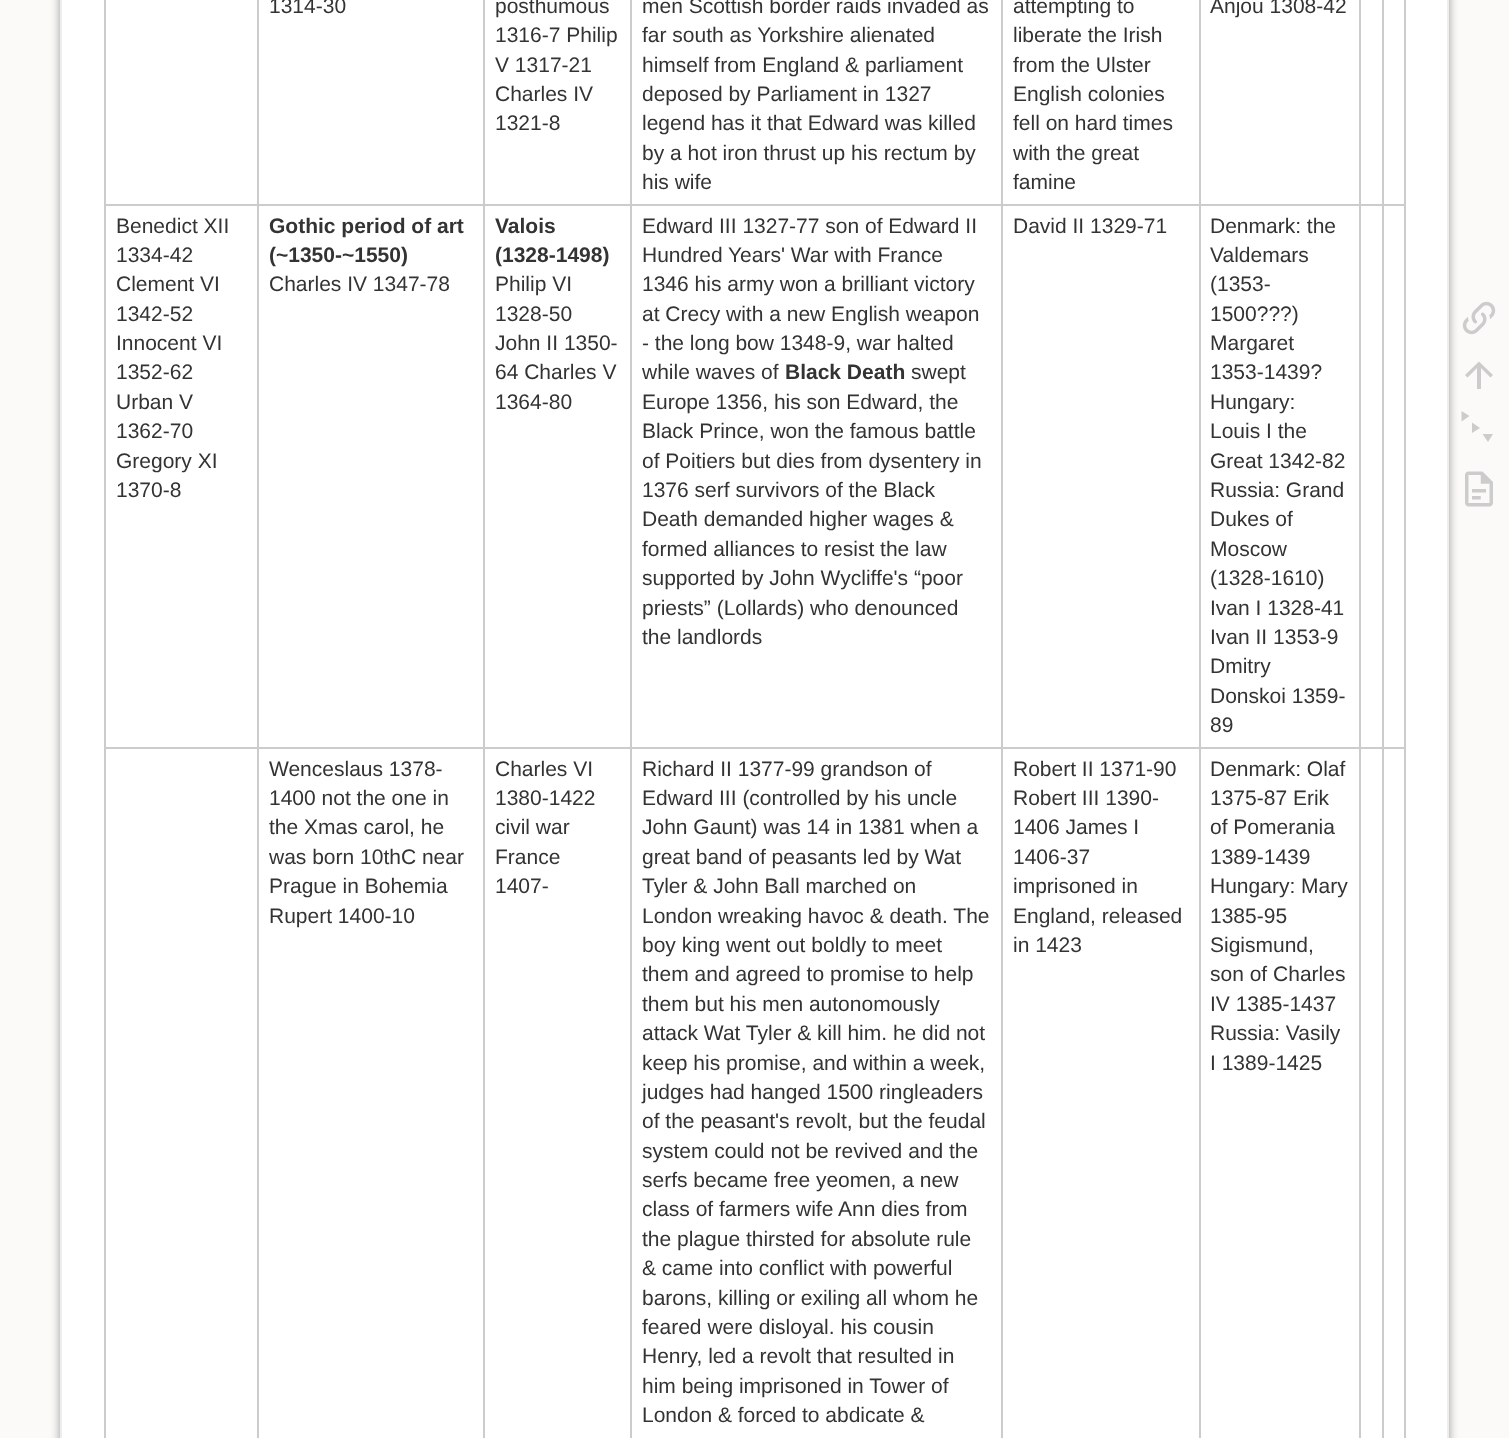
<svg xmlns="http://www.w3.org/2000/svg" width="1509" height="1438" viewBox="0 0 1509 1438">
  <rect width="100%" height="100%" fill="rgb(251,250,249)"/>
  <rect x="60" y="-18" width="1389" height="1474" rx="3" fill="rgb(153,153,153)" filter="blur(5px)"/>
  <rect x="61" y="-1" width="1387" height="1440" fill="rgb(255,255,255)" stroke="rgb(238,238,238)" stroke-width="2"/>
  <rect x="1404" y="0" width="2" height="1438" fill="rgb(204,204,204)"/>
  <rect x="104" y="0" width="2" height="1438" fill="rgb(204,204,204)"/>
  <rect x="1382" y="204" width="24" height="2" fill="rgb(204,204,204)"/>
  <rect x="1382" y="747" width="24" height="2" fill="rgb(204,204,204)"/>
  <rect x="1382" y="747" width="2" height="691" fill="rgb(204,204,204)"/>
  <rect x="1359" y="747" width="24" height="2" fill="rgb(204,204,204)"/>
  <rect x="1382" y="204" width="2" height="545" fill="rgb(204,204,204)"/>
  <rect x="1359" y="204" width="24" height="2" fill="rgb(204,204,204)"/>
  <rect x="1359" y="747" width="2" height="691" fill="rgb(204,204,204)"/>
  <rect x="1199" y="747" width="162" height="2" fill="rgb(204,204,204)"/>
  <rect x="1359" y="204" width="2" height="545" fill="rgb(204,204,204)"/>
  <rect x="1199" y="204" width="162" height="2" fill="rgb(204,204,204)"/>
  <rect x="1199" y="747" width="2" height="691" fill="rgb(204,204,204)"/>
  <rect x="1001" y="747" width="199" height="2" fill="rgb(204,204,204)"/>
  <rect x="1199" y="204" width="2" height="545" fill="rgb(204,204,204)"/>
  <rect x="1001" y="204" width="199" height="2" fill="rgb(204,204,204)"/>
  <rect x="1001" y="747" width="2" height="691" fill="rgb(204,204,204)"/>
  <rect x="630" y="747" width="372" height="2" fill="rgb(204,204,204)"/>
  <rect x="1001" y="204" width="2" height="545" fill="rgb(204,204,204)"/>
  <rect x="630" y="204" width="372" height="2" fill="rgb(204,204,204)"/>
  <rect x="630" y="747" width="2" height="691" fill="rgb(204,204,204)"/>
  <rect x="483" y="747" width="149" height="2" fill="rgb(204,204,204)"/>
  <rect x="630" y="204" width="2" height="545" fill="rgb(204,204,204)"/>
  <rect x="483" y="204" width="149" height="2" fill="rgb(204,204,204)"/>
  <rect x="483" y="747" width="2" height="691" fill="rgb(204,204,204)"/>
  <rect x="257" y="747" width="228" height="2" fill="rgb(204,204,204)"/>
  <rect x="483" y="204" width="2" height="545" fill="rgb(204,204,204)"/>
  <rect x="257" y="204" width="228" height="2" fill="rgb(204,204,204)"/>
  <rect x="257" y="747" width="2" height="691" fill="rgb(204,204,204)"/>
  <rect x="104" y="747" width="154" height="2" fill="rgb(204,204,204)"/>
  <rect x="257" y="204" width="2" height="545" fill="rgb(204,204,204)"/>
  <rect x="104" y="204" width="154" height="2" fill="rgb(204,204,204)"/>
  <rect x="257" y="0" width="2" height="206" fill="rgb(204,204,204)"/>
  <text x="269" y="13" font-family="Liberation Sans" font-size="21" fill="rgb(51,51,51)">1314-30</text>
  <rect x="483" y="0" width="2" height="206" fill="rgb(204,204,204)"/>
  <g font-family="Liberation Sans" font-size="21" fill="rgb(51,51,51)">
    <text>
      <tspan x="495" y="13">posthumous</tspan>
      <tspan x="495" y="42">1316-7 Philip</tspan>
      <tspan x="495" y="72">V 1317-21</tspan>
      <tspan x="495" y="101">Charles IV</tspan>
      <tspan x="495" y="130">1321-8</tspan>
    </text>
  </g>
  <rect x="630" y="0" width="2" height="206" fill="rgb(204,204,204)"/>
  <g font-family="Liberation Sans" font-size="21" fill="rgb(51,51,51)">
    <text>
      <tspan x="642" y="13">men Scottish border raids invaded as</tspan>
      <tspan x="642" y="42">far south as Yorkshire alienated</tspan>
      <tspan x="642" y="72">himself from England &amp; parliament</tspan>
      <tspan x="642" y="101">deposed by Parliament in 1327</tspan>
      <tspan x="642" y="130">legend has it that Edward was killed</tspan>
      <tspan x="642" y="160">by a hot iron thrust up his rectum by</tspan>
      <tspan x="642" y="189">his wife</tspan>
    </text>
  </g>
  <rect x="1001" y="0" width="2" height="206" fill="rgb(204,204,204)"/>
  <g font-family="Liberation Sans" font-size="21" fill="rgb(51,51,51)">
    <text>
      <tspan x="1013" y="13">attempting to</tspan>
      <tspan x="1013" y="42">liberate the Irish</tspan>
      <tspan x="1013" y="72">from the Ulster</tspan>
      <tspan x="1013" y="101">English colonies</tspan>
      <tspan x="1013" y="130">fell on hard times</tspan>
      <tspan x="1013" y="160">with the great</tspan>
      <tspan x="1013" y="189">famine</tspan>
    </text>
  </g>
  <rect x="1199" y="0" width="2" height="206" fill="rgb(204,204,204)"/>
  <text x="1210" y="13" font-family="Liberation Sans" font-size="21" fill="rgb(51,51,51)">Anjou 1308-42</text>
  <rect x="1359" y="0" width="2" height="206" fill="rgb(204,204,204)"/>
  <rect x="1382" y="0" width="2" height="206" fill="rgb(204,204,204)"/>
  <g font-family="Liberation Sans" font-size="21" fill="rgb(51,51,51)">
    <text>
      <tspan x="116" y="233">Benedict XII</tspan>
      <tspan x="116" y="262">1334-42</tspan>
      <tspan x="116" y="291">Clement VI</tspan>
      <tspan x="116" y="321">1342-52</tspan>
      <tspan x="116" y="350">Innocent VI</tspan>
      <tspan x="116" y="379">1352-62</tspan>
      <tspan x="116" y="409">Urban V</tspan>
      <tspan x="116" y="438">1362-70</tspan>
      <tspan x="116" y="468">Gregory XI</tspan>
      <tspan x="116" y="497">1370-8</tspan>
    </text>
  </g>
  <g font-family="Liberation Sans" font-size="21" font-weight="bold" fill="rgb(51,51,51)">
    <text>
      <tspan x="269" y="233">Gothic period of art</tspan>
      <tspan x="269" y="262">(~1350-~1550)</tspan>
    </text>
  </g>
  <text x="269" y="291" font-family="Liberation Sans" font-size="21" fill="rgb(51,51,51)">Charles IV 1347-78</text>
  <g font-family="Liberation Sans" font-size="21" font-weight="bold" fill="rgb(51,51,51)">
    <text>
      <tspan x="495" y="233">Valois</tspan>
      <tspan x="495" y="262">(1328-1498)</tspan>
    </text>
  </g>
  <g font-family="Liberation Sans" font-size="21" fill="rgb(51,51,51)">
    <text>
      <tspan x="495" y="291">Philip VI</tspan>
      <tspan x="495" y="321">1328-50</tspan>
      <tspan x="495" y="350">John II 1350-</tspan>
      <tspan x="495" y="379">64 Charles V</tspan>
      <tspan x="495" y="409">1364-80</tspan>
    </text>
    <text>
      <tspan x="642" y="233">Edward III 1327-77 son of Edward II</tspan>
      <tspan x="642" y="262">Hundred Years' War with France</tspan>
      <tspan x="642" y="291">1346 his army won a brilliant victory</tspan>
      <tspan x="642" y="321">at Crecy with a new English weapon</tspan>
      <tspan x="642" y="350">- the long bow 1348-9, war halted</tspan>
      <tspan x="642" y="379">while waves of</tspan>
    </text>
  </g>
  <text x="785" y="379" font-family="Liberation Sans" font-size="21" font-weight="bold" fill="rgb(51,51,51)">Black Death</text>
  <g font-family="Liberation Sans" font-size="21" fill="rgb(51,51,51)">
    <text x="911" y="379">swept</text>
    <text>
      <tspan x="642" y="409">Europe 1356, his son Edward, the</tspan>
      <tspan x="642" y="438">Black Prince, won the famous battle</tspan>
      <tspan x="642" y="468">of Poitiers but dies from dysentery in</tspan>
      <tspan x="642" y="497">1376 serf survivors of the Black</tspan>
      <tspan x="642" y="526">Death demanded higher wages &amp;</tspan>
      <tspan x="642" y="556">formed alliances to resist the law</tspan>
      <tspan x="642" y="585">supported by John Wycliffe's “poor</tspan>
      <tspan x="642" y="615">priests” (Lollards) who denounced</tspan>
      <tspan x="642" y="644">the landlords</tspan>
    </text>
    <text x="1013" y="233">David II 1329-71</text>
    <text>
      <tspan x="1210" y="233">Denmark: the</tspan>
      <tspan x="1210" y="262">Valdemars</tspan>
      <tspan x="1210" y="291">(1353-</tspan>
      <tspan x="1210" y="321">1500???)</tspan>
      <tspan x="1210" y="350">Margaret</tspan>
      <tspan x="1210" y="379">1353-1439?</tspan>
      <tspan x="1210" y="409">Hungary:</tspan>
      <tspan x="1210" y="438">Louis I the</tspan>
      <tspan x="1210" y="468">Great 1342-82</tspan>
      <tspan x="1210" y="497">Russia: Grand</tspan>
      <tspan x="1210" y="526">Dukes of</tspan>
      <tspan x="1210" y="556">Moscow</tspan>
      <tspan x="1210" y="585">(1328-1610)</tspan>
      <tspan x="1210" y="615">Ivan I 1328-41</tspan>
      <tspan x="1210" y="644">Ivan II 1353-9</tspan>
      <tspan x="1210" y="673">Dmitry</tspan>
      <tspan x="1210" y="703">Donskoi 1359-</tspan>
      <tspan x="1210" y="732">89</tspan>
    </text>
    <text>
      <tspan x="269" y="776">Wenceslaus 1378-</tspan>
      <tspan x="269" y="805">1400 not the one in</tspan>
      <tspan x="269" y="834">the Xmas carol, he</tspan>
      <tspan x="269" y="864">was born 10thC near</tspan>
      <tspan x="269" y="893">Prague in Bohemia</tspan>
      <tspan x="269" y="923">Rupert 1400-10</tspan>
    </text>
    <text>
      <tspan x="495" y="776">Charles VI</tspan>
      <tspan x="495" y="805">1380-1422</tspan>
      <tspan x="495" y="834">civil war</tspan>
      <tspan x="495" y="864">France</tspan>
      <tspan x="495" y="893">1407-</tspan>
    </text>
    <text>
      <tspan x="642" y="776">Richard II 1377-99 grandson of</tspan>
      <tspan x="642" y="805">Edward III (controlled by his uncle</tspan>
      <tspan x="642" y="834">John Gaunt) was 14 in 1381 when a</tspan>
      <tspan x="642" y="864">great band of peasants led by Wat</tspan>
      <tspan x="642" y="893">Tyler &amp; John Ball marched on</tspan>
      <tspan x="642" y="923">London wreaking havoc &amp; death. The</tspan>
      <tspan x="642" y="952">boy king went out boldly to meet</tspan>
      <tspan x="642" y="981">them and agreed to promise to help</tspan>
      <tspan x="642" y="1011">them but his men autonomously</tspan>
      <tspan x="642" y="1040">attack Wat Tyler &amp; kill him. he did not</tspan>
      <tspan x="642" y="1070">keep his promise, and within a week,</tspan>
      <tspan x="642" y="1099">judges had hanged 1500 ringleaders</tspan>
      <tspan x="642" y="1128">of the peasant's revolt, but the feudal</tspan>
      <tspan x="642" y="1158">system could not be revived and the</tspan>
      <tspan x="642" y="1187">serfs became free yeomen, a new</tspan>
      <tspan x="642" y="1216">class of farmers wife Ann dies from</tspan>
      <tspan x="642" y="1246">the plague thirsted for absolute rule</tspan>
      <tspan x="642" y="1275">&amp; came into conflict with powerful</tspan>
      <tspan x="642" y="1305">barons, killing or exiling all whom he</tspan>
      <tspan x="642" y="1334">feared were disloyal. his cousin</tspan>
      <tspan x="642" y="1363">Henry, led a revolt that resulted in</tspan>
      <tspan x="642" y="1393">him being imprisoned in Tower of</tspan>
      <tspan x="642" y="1422">London &amp; forced to abdicate &amp;</tspan>
    </text>
    <text>
      <tspan x="1013" y="776">Robert II 1371-90</tspan>
      <tspan x="1013" y="805">Robert III 1390-</tspan>
      <tspan x="1013" y="834">1406 James I</tspan>
      <tspan x="1013" y="864">1406-37</tspan>
      <tspan x="1013" y="893">imprisoned in</tspan>
      <tspan x="1013" y="923">England, released</tspan>
      <tspan x="1013" y="952">in 1423</tspan>
    </text>
    <text>
      <tspan x="1210" y="776">Denmark: Olaf</tspan>
      <tspan x="1210" y="805">1375-87 Erik</tspan>
      <tspan x="1210" y="834">of Pomerania</tspan>
      <tspan x="1210" y="864">1389-1439</tspan>
      <tspan x="1210" y="893">Hungary: Mary</tspan>
      <tspan x="1210" y="923">1385-95</tspan>
      <tspan x="1210" y="952">Sigismund,</tspan>
      <tspan x="1210" y="981">son of Charles</tspan>
      <tspan x="1210" y="1011">IV 1385-1437</tspan>
      <tspan x="1210" y="1040">Russia: Vasily</tspan>
      <tspan x="1210" y="1070">I 1389-1425</tspan>
    </text>
  </g>
  <image x="1462" y="301" width="34" height="34" href="pic1.png"/>
  <path d="M1481 389H1477V368L1467.5 377.5L1465 375L1479 361.5L1493 375L1490.5 377.5L1481 368Z" fill="rgb(204,204,204)"/>
  <path d="M1461.5 411L1469.5 416L1461.5 421.5ZM1472 422.5L1480 428L1472 433ZM1482.5 434H1493L1488 442Z" fill="rgb(204,204,204)"/>
  <image x="1465" y="471" width="28" height="36" href="pic2.png"/>
</svg>
